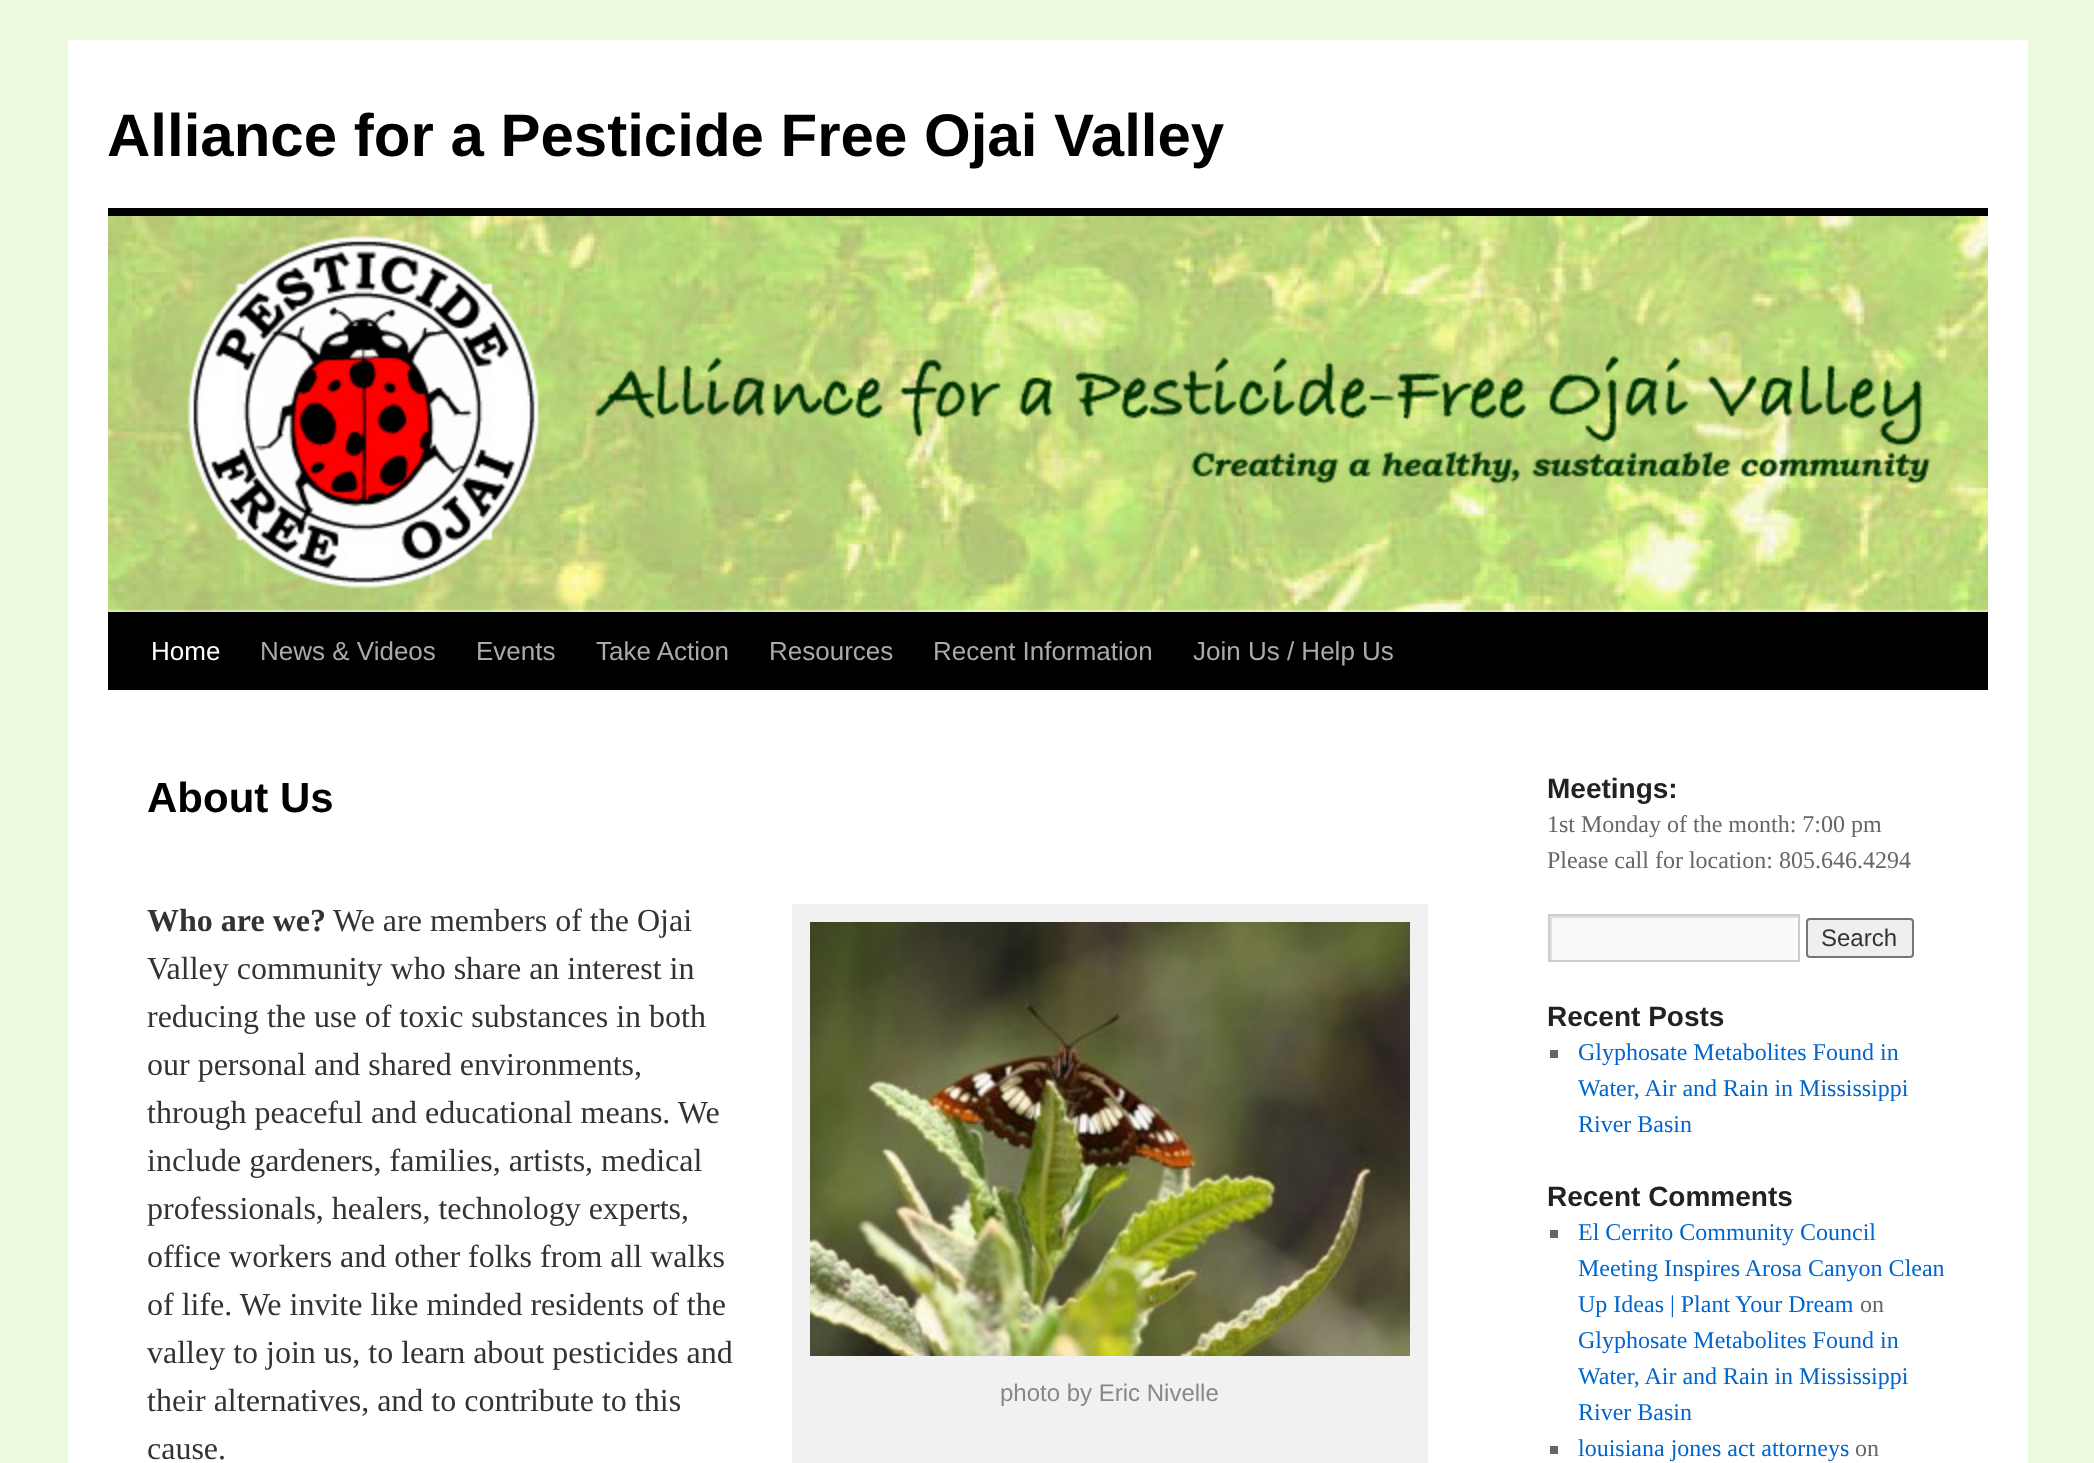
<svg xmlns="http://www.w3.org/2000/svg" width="2094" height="1463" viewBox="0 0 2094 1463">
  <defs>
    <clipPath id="clip1"><rect x="1550" y="916" width="248" height="44"/></clipPath>
  </defs>
  <rect width="100%" height="100%" fill="rgb(236,251,221)"/>
  <rect x="68" y="40" width="1960" height="1423" fill="rgb(255,255,255)"/>
  <text x="107" y="156" font-family="Liberation Sans" font-size="60" font-weight="bold" fill="rgb(0,0,0)">Alliance for a Pesticide Free Ojai Valley</text>
  <rect x="108" y="208" width="1880" height="8" fill="rgb(0,0,0)"/>
  <rect x="108" y="612" width="1880" height="78" fill="rgb(0,0,0)"/>
  <image x="108" y="216" width="1880" height="396" href="pic1.png"/>
  <text x="151" y="660" font-family="Liberation Sans" font-size="26" fill="rgb(255,255,255)">Home</text>
  <g font-family="Liberation Sans" font-size="26" fill="rgb(170,170,170)">
    <text x="260" y="660">News &amp; Videos</text>
    <text x="476" y="660">Events</text>
    <text x="596" y="660">Take Action</text>
    <text x="769" y="660">Resources</text>
    <text x="933" y="660">Recent Information</text>
    <text x="1193" y="660">Join Us / Help Us</text>
  </g>
  <text x="147" y="812" font-family="Liberation Sans" font-size="42" font-weight="bold" fill="rgb(0,0,0)">About Us</text>
  <text x="147" y="931" font-family="Liberation Serif" font-size="32" font-weight="bold" fill="rgb(51,51,51)">Who are we?</text>
  <g font-family="Liberation Serif" font-size="32" fill="rgb(51,51,51)">
    <text x="333" y="931">We are members of the Ojai</text>
    <text>
      <tspan x="147" y="979">Valley community who share an interest in</tspan>
      <tspan x="147" y="1027">reducing the use of toxic substances in both</tspan>
      <tspan x="147" y="1075">our personal and shared environments,</tspan>
      <tspan x="147" y="1123">through peaceful and educational means. We</tspan>
      <tspan x="147" y="1171">include gardeners, families, artists, medical</tspan>
      <tspan x="147" y="1219">professionals, healers, technology experts,</tspan>
      <tspan x="147" y="1267">office workers and other folks from all walks</tspan>
      <tspan x="147" y="1315">of life. We invite like minded residents of the</tspan>
      <tspan x="147" y="1363">valley to join us, to learn about pesticides and</tspan>
      <tspan x="147" y="1411">their alternatives, and to contribute to this</tspan>
      <tspan x="147" y="1459">cause.</tspan>
    </text>
  </g>
  <rect x="792" y="904" width="636" height="559" fill="rgb(241,241,241)"/>
  <image x="810" y="922" width="600" height="434" href="pic2.png"/>
  <text x="1000" y="1401" font-family="Liberation Sans" font-size="24" fill="rgb(136,136,136)">photo by Eric Nivelle</text>
  <text x="1547" y="798" font-family="Liberation Sans" font-size="28" font-weight="bold" fill="rgb(34,34,34)">Meetings:</text>
  <g font-family="Liberation Serif" font-size="24" fill="rgb(102,102,102)">
    <text>
      <tspan x="1547" y="832">1st Monday of the month: 7:00 pm</tspan>
      <tspan x="1547" y="868">Please call for location: 805.646.4294</tspan>
    </text>
  </g>
  <rect x="1552" y="918" width="246" height="42" fill="rgb(249,249,249)"/>
  <g clip-path="url(#clip1)">
    <path d="M1352 718H1996V1158H1352ZM1552 918H1800V962H1552Z" fill="rgb(224,224,224)" fill-rule="evenodd"/>
  </g>
  <rect x="1549" y="915" width="250" height="46" fill="none" stroke="rgb(204,204,204)" stroke-width="2"/>
  <rect x="1807" y="919" width="106" height="38" rx="3" fill="rgb(239,239,239)" stroke="rgb(118,118,118)" stroke-width="2"/>
  <text x="1821" y="946" font-family="Liberation Sans" font-size="24" fill="rgb(51,51,51)">Search</text>
  <text x="1547" y="1026" font-family="Liberation Sans" font-size="28" font-weight="bold" fill="rgb(34,34,34)">Recent Posts</text>
  <rect x="1550" y="1050" width="8" height="8" fill="rgb(102,102,102)"/>
  <g font-family="Liberation Serif" font-size="24" fill="rgb(0,102,204)">
    <text>
      <tspan x="1578" y="1060">Glyphosate Metabolites Found in</tspan>
      <tspan x="1578" y="1096">Water, Air and Rain in Mississippi</tspan>
      <tspan x="1578" y="1132">River Basin</tspan>
    </text>
  </g>
  <text x="1547" y="1206" font-family="Liberation Sans" font-size="28" font-weight="bold" fill="rgb(34,34,34)">Recent Comments</text>
  <rect x="1550" y="1230" width="8" height="8" fill="rgb(102,102,102)"/>
  <g font-family="Liberation Serif" font-size="24" fill="rgb(0,102,204)">
    <text>
      <tspan x="1578" y="1240">El Cerrito Community Council</tspan>
      <tspan x="1578" y="1276">Meeting Inspires Arosa Canyon Clean</tspan>
      <tspan x="1578" y="1312">Up Ideas | Plant Your Dream</tspan>
    </text>
  </g>
  <text x="1860" y="1312" font-family="Liberation Serif" font-size="24" fill="rgb(102,102,102)">on</text>
  <g font-family="Liberation Serif" font-size="24" fill="rgb(0,102,204)">
    <text>
      <tspan x="1578" y="1348">Glyphosate Metabolites Found in</tspan>
      <tspan x="1578" y="1384">Water, Air and Rain in Mississippi</tspan>
      <tspan x="1578" y="1420">River Basin</tspan>
    </text>
  </g>
  <rect x="1550" y="1446" width="8" height="8" fill="rgb(102,102,102)"/>
  <text x="1578" y="1456" font-family="Liberation Serif" font-size="24" fill="rgb(0,102,204)">louisiana jones act attorneys</text>
  <text x="1855" y="1456" font-family="Liberation Serif" font-size="24" fill="rgb(102,102,102)">on</text>
</svg>
